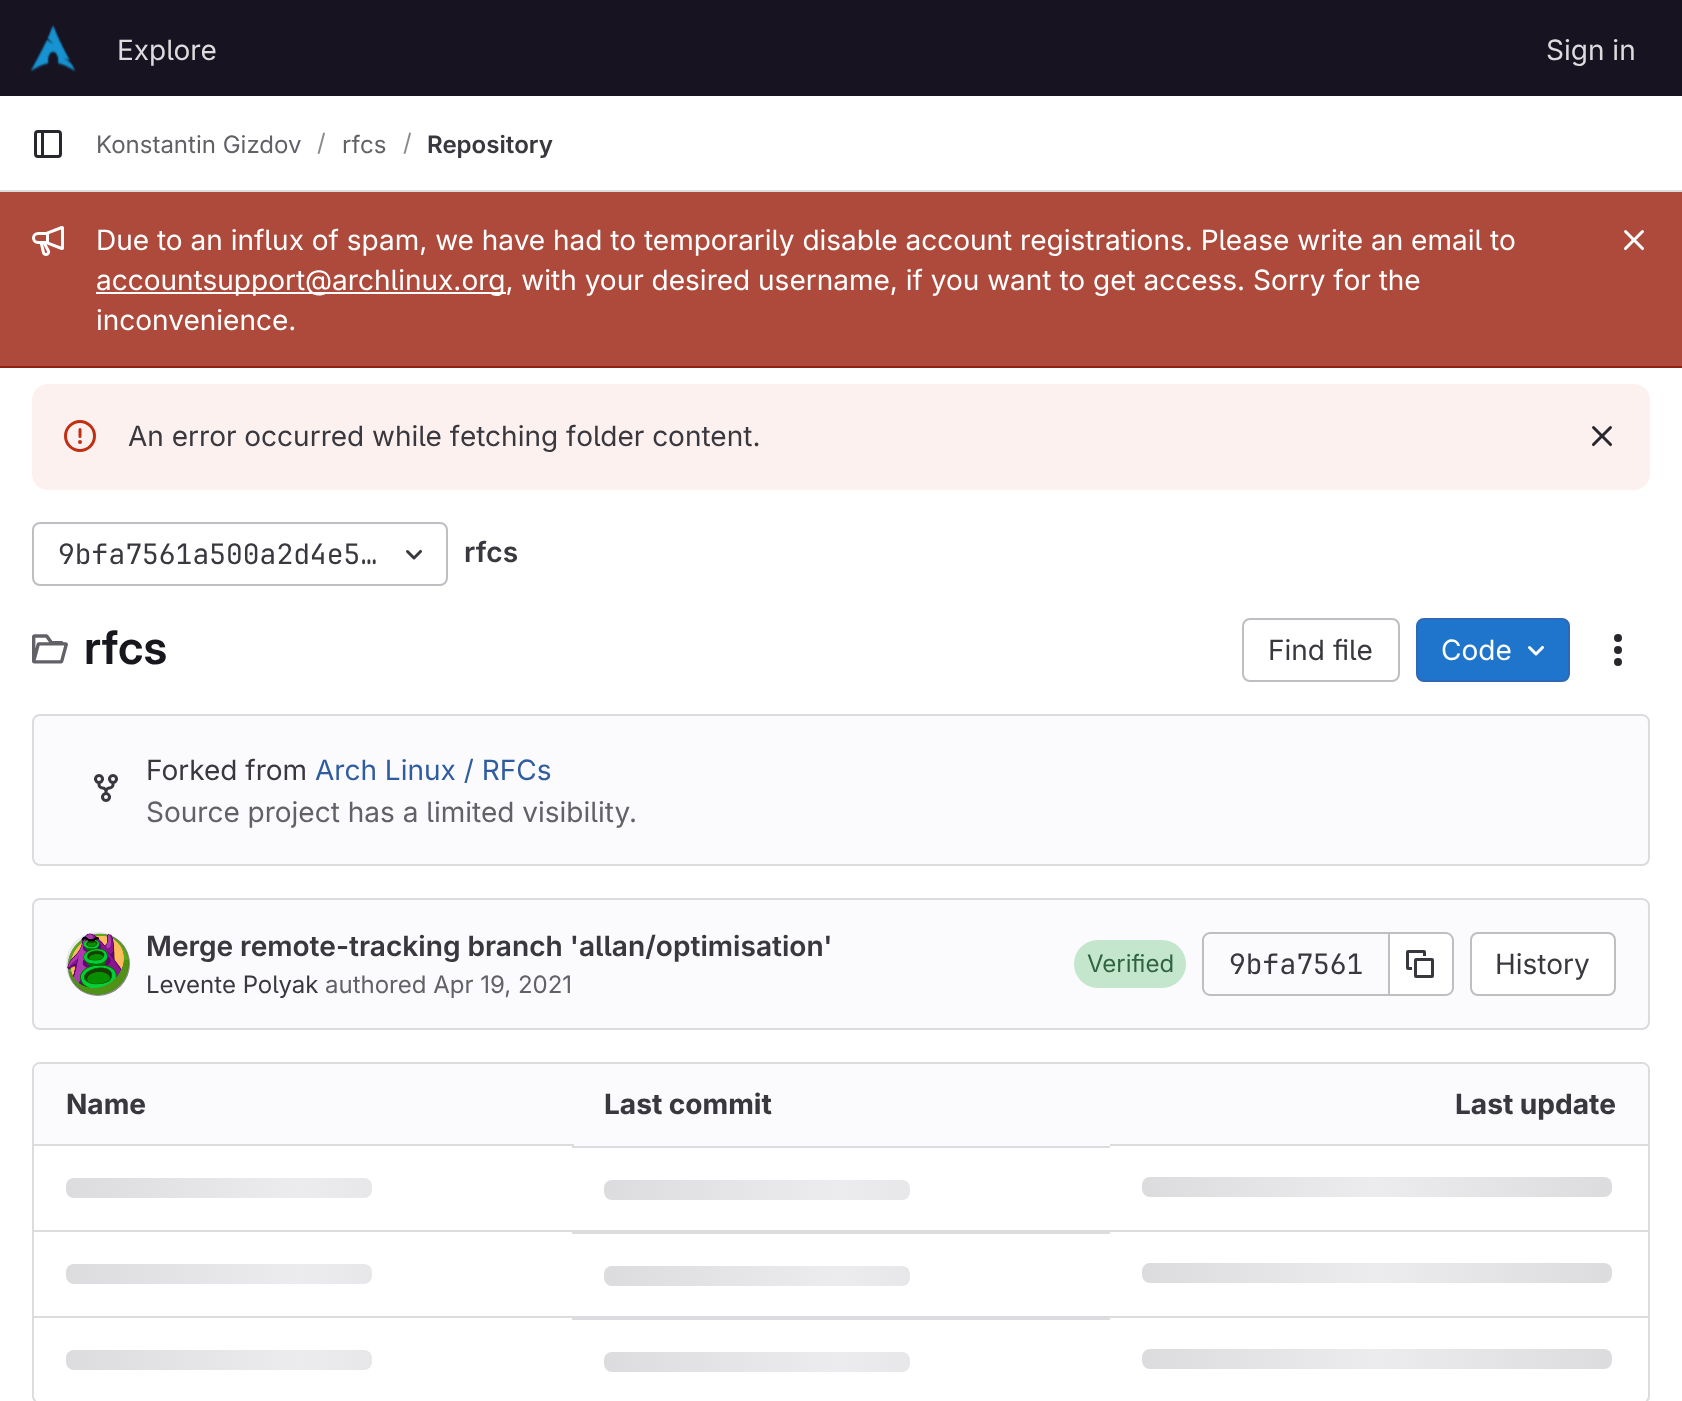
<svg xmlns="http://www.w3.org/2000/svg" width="1682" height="1401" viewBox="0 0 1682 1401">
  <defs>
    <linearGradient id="g1" gradientUnits="userSpaceOnUse" x1="66" y1="1178" x2="536" y2="1178"><stop offset="0" stop-color="rgb(220,220,222)"/><stop offset="0.5" stop-color="rgb(236,236,239)"/><stop offset="1" stop-color="rgb(220,220,222)"/></linearGradient>
    <linearGradient id="g2" gradientUnits="userSpaceOnUse" x1="604" y1="1180" x2="1074" y2="1180"><stop offset="0" stop-color="rgb(220,220,222)"/><stop offset="0.5" stop-color="rgb(236,236,239)"/><stop offset="1" stop-color="rgb(220,220,222)"/></linearGradient>
    <linearGradient id="g3" gradientUnits="userSpaceOnUse" x1="1142" y1="1177" x2="1612" y2="1177"><stop offset="0" stop-color="rgb(220,220,222)"/><stop offset="0.5" stop-color="rgb(236,236,239)"/><stop offset="1" stop-color="rgb(220,220,222)"/></linearGradient>
    <linearGradient id="g4" gradientUnits="userSpaceOnUse" x1="66" y1="1264" x2="536" y2="1264"><stop offset="0" stop-color="rgb(220,220,222)"/><stop offset="0.5" stop-color="rgb(236,236,239)"/><stop offset="1" stop-color="rgb(220,220,222)"/></linearGradient>
    <linearGradient id="g5" gradientUnits="userSpaceOnUse" x1="604" y1="1266" x2="1074" y2="1266"><stop offset="0" stop-color="rgb(220,220,222)"/><stop offset="0.5" stop-color="rgb(236,236,239)"/><stop offset="1" stop-color="rgb(220,220,222)"/></linearGradient>
    <linearGradient id="g6" gradientUnits="userSpaceOnUse" x1="1142" y1="1263" x2="1612" y2="1263"><stop offset="0" stop-color="rgb(220,220,222)"/><stop offset="0.5" stop-color="rgb(236,236,239)"/><stop offset="1" stop-color="rgb(220,220,222)"/></linearGradient>
    <linearGradient id="g7" gradientUnits="userSpaceOnUse" x1="66" y1="1350" x2="536" y2="1350"><stop offset="0" stop-color="rgb(220,220,222)"/><stop offset="0.5" stop-color="rgb(236,236,239)"/><stop offset="1" stop-color="rgb(220,220,222)"/></linearGradient>
    <linearGradient id="g8" gradientUnits="userSpaceOnUse" x1="604" y1="1352" x2="1074" y2="1352"><stop offset="0" stop-color="rgb(220,220,222)"/><stop offset="0.5" stop-color="rgb(236,236,239)"/><stop offset="1" stop-color="rgb(220,220,222)"/></linearGradient>
    <linearGradient id="g9" gradientUnits="userSpaceOnUse" x1="1142" y1="1349" x2="1612" y2="1349"><stop offset="0" stop-color="rgb(220,220,222)"/><stop offset="0.5" stop-color="rgb(236,236,239)"/><stop offset="1" stop-color="rgb(220,220,222)"/></linearGradient>
  </defs>
  <rect width="100%" height="100%" fill="rgb(255,255,255)"/>
  <rect x="0" y="0" width="1682" height="96" fill="rgb(23,19,33)"/>
  <image x="30" y="24" width="46" height="48" href="pic1.png"/>
  <g font-family="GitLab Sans" font-size="28" fill="rgb(220,220,222)">
    <text x="117" y="60">Explore</text>
    <text x="1546" y="60">Sign in</text>
  </g>
  <rect x="0" y="190" width="1682" height="2" fill="rgb(220,220,222)"/>
  <image x="34" y="130" width="28" height="28" href="pic2.png"/>
  <text x="96" y="153" font-family="GitLab Sans" font-size="24" fill="rgb(98,97,104)">Konstantin Gizdov</text>
  <text x="317" y="151" font-family="GitLab Sans" font-size="24" fill="rgb(137,136,141)">/</text>
  <text x="342" y="153" font-family="GitLab Sans" font-size="24" fill="rgb(98,97,104)">rfcs</text>
  <text x="403" y="151" font-family="GitLab Sans" font-size="24" fill="rgb(137,136,141)">/</text>
  <text x="427" y="153" font-family="'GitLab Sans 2'" font-size="24" font-weight="600" fill="rgb(58,56,63)">Repository</text>
  <rect x="0" y="192" width="1682" height="174" fill="rgb(173,74,59)"/>
  <rect x="0" y="366" width="1682" height="2" fill="rgb(143,33,16)"/>
  <image x="32" y="226" width="32" height="30" href="pic3.png"/>
  <text x="96" y="250" font-family="GitLab Sans" font-size="28" fill="rgb(255,255,255)">Due to an influx of spam, we have had to temporarily disable account registrations. Please write an email to</text>
  <rect x="96" y="292" width="410" height="2" fill="rgb(255,255,255)"/>
  <g font-family="GitLab Sans" font-size="28" fill="rgb(255,255,255)">
    <text>
      <tspan x="96" y="290">accountsupport@archlinux.org, with your desired username, if you want to get access. Sorry for the</tspan>
      <tspan x="96" y="330">inconvenience.</tspan>
    </text>
  </g>
  <image x="1623" y="230" width="22" height="21" href="pic4.png"/>
  <rect x="32" y="384" width="1618" height="106" rx="16" fill="rgb(252,241,239)"/>
  <image x="64" y="420" width="32" height="32" href="pic5.png"/>
  <text x="128" y="446" font-family="GitLab Sans" font-size="28" fill="rgb(58,56,63)">An error occurred while fetching folder content.</text>
  <image x="1591" y="426" width="22" height="21" href="pic6.png"/>
  <rect x="33" y="523" width="414" height="62" rx="7" fill="none" stroke="rgb(191,191,195)" stroke-width="2"/>
  <text x="58" y="564" font-family="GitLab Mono" font-size="28" fill="rgb(58,56,63)">9bfa7561a500a2d4e5…</text>
  <image x="406" y="549" width="17" height="11" href="pic7.png"/>
  <text x="464" y="562" font-family="'GitLab Sans 2'" font-size="28" font-weight="600" fill="rgb(58,56,63)">rfcs</text>
  <image x="32" y="634" width="36" height="30" href="pic8.png"/>
  <text x="84" y="664" font-family="GitLab Sans" font-size="46" font-weight="600" fill="rgb(24,23,29)">rfcs</text>
  <rect x="1243" y="619" width="156" height="62" rx="7" fill="none" stroke="rgb(191,191,195)" stroke-width="2"/>
  <text x="1268" y="660" font-family="GitLab Sans" font-size="28" fill="rgb(58,56,63)">Find file</text>
  <rect x="1417" y="619" width="152" height="62" rx="7" fill="rgb(31,117,203)" stroke="rgb(47,104,180)" stroke-width="2"/>
  <text x="1441" y="660" font-family="GitLab Sans" font-size="28" fill="rgb(255,255,255)">Code</text>
  <image x="1528" y="645" width="17" height="11" href="pic9.png"/>
  <image x="1614" y="634" width="8" height="32" href="pic10.png"/>
  <rect x="33" y="715" width="1616" height="150" rx="7" fill="rgb(251,250,253)" stroke="rgb(220,220,222)" stroke-width="2"/>
  <image x="94" y="774" width="24" height="28" href="pic11.png"/>
  <text x="146" y="780" font-family="GitLab Sans" font-size="28" fill="rgb(58,56,63)">Forked from</text>
  <text x="315" y="780" font-family="GitLab Sans" font-size="28" fill="rgb(47,92,160)">Arch Linux / RFCs</text>
  <text x="146" y="822" font-family="GitLab Sans" font-size="28" fill="rgb(98,97,104)">Source project has a limited visibility.</text>
  <rect x="33" y="899" width="1616" height="130" rx="7" fill="rgb(251,250,253)" stroke="rgb(220,220,222)" stroke-width="2"/>
  <image x="67" y="933" width="63" height="63" href="pic12.png"/>
  <circle cx="98" cy="964" r="31" fill="none" stroke="rgba(5,5,6,0.08)" stroke-width="2"/>
  <text x="146" y="956" font-family="'GitLab Sans 2'" font-size="28" font-weight="600" fill="rgb(58,56,63)">Merge remote-tracking branch 'allan/optimisation'</text>
  <text x="146" y="993" font-family="GitLab Sans" font-size="24" fill="rgb(58,56,63)">Levente Polyak</text>
  <text x="325" y="993" font-family="GitLab Sans" font-size="24" fill="rgb(98,97,104)">authored Apr 19, 2021</text>
  <rect x="1074" y="940" width="112" height="48" rx="24" fill="rgb(195,230,205)"/>
  <text x="1087" y="972" font-family="GitLab Sans" font-size="24" fill="rgb(48,100,64)">Verified</text>
  <path d="M1210 932H1388V996H1210C1206 996 1202 992 1202 988V940C1202 936 1206 932 1210 932ZM1210 934H1388V994H1210C1207 994 1204 991 1204 988V940C1204 937 1207 934 1210 934Z" fill="rgb(191,191,195)" fill-rule="evenodd"/>
  <text x="1229" y="974" font-family="GitLab Mono" font-size="28" fill="rgb(58,56,63)">9bfa7561</text>
  <path d="M1390 934H1446C1449.5 934 1452 936.5 1452 940V988C1452 991.5 1449.5 994 1446 994H1390Z" fill="rgb(255,255,255)"/>
  <path d="M1390 932H1446C1450 932 1454 936 1454 940V988C1454 992 1450 996 1446 996H1390ZM1390 934H1446C1449 934 1452 937 1452 940V988C1452 991 1449 994 1446 994H1390Z" fill="rgb(191,191,195)" fill-rule="evenodd"/>
  <rect x="1388" y="932" width="2" height="64" fill="rgb(191,191,195)"/>
  <image x="1406" y="950" width="28" height="28" href="pic13.png"/>
  <rect x="1471" y="933" width="144" height="62" rx="7" fill="rgb(255,255,255)" stroke="rgb(191,191,195)" stroke-width="2"/>
  <text x="1495" y="974" font-family="GitLab Sans" font-size="28" fill="rgb(58,56,63)">History</text>
  <rect x="33" y="1063" width="1616" height="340" rx="7" fill="none" stroke="rgb(220,220,222)" stroke-width="2"/>
  <path d="M40 1064H572V1146H34V1070C34 1066.5 36.5 1064 40 1064Z" fill="rgb(251,250,253)"/>
  <text x="66" y="1114" font-family="GitLab Sans" font-size="28" font-weight="bold" fill="rgb(58,56,63)">Name</text>
  <rect x="572" y="1064" width="538" height="82" fill="rgb(251,250,253)"/>
  <text x="604" y="1114" font-family="GitLab Sans" font-size="28" font-weight="bold" fill="rgb(58,56,63)">Last commit</text>
  <path d="M1110 1064H1642C1645.5 1064 1648 1066.5 1648 1070V1146H1110Z" fill="rgb(251,250,253)"/>
  <text x="1455" y="1114" font-family="GitLab Sans" font-size="28" font-weight="bold" fill="rgb(58,56,63)">Last update</text>
  <rect x="34" y="1230" width="1614" height="2" fill="rgb(220,220,222)"/>
  <rect x="34" y="1144" width="540" height="2" fill="rgb(220,220,222)"/>
  <rect x="66" y="1178" width="306" height="20" rx="8" fill="url(#g1)"/>
  <rect x="572" y="1146" width="538" height="2" fill="rgb(220,220,222)"/>
  <rect x="604" y="1180" width="306" height="20" rx="8" fill="url(#g2)"/>
  <rect x="1110" y="1144" width="538" height="2" fill="rgb(220,220,222)"/>
  <rect x="1142" y="1177" width="470" height="20" rx="8" fill="url(#g3)"/>
  <rect x="34" y="1316" width="1614" height="2" fill="rgb(220,220,222)"/>
  <rect x="66" y="1264" width="306" height="20" rx="8" fill="url(#g4)"/>
  <rect x="572" y="1232" width="538" height="2" fill="rgb(220,220,222)"/>
  <rect x="604" y="1266" width="306" height="20" rx="8" fill="url(#g5)"/>
  <rect x="1142" y="1263" width="470" height="20" rx="8" fill="url(#g6)"/>
  <rect x="66" y="1350" width="306" height="20" rx="8" fill="url(#g7)"/>
  <rect x="572" y="1318" width="538" height="2" fill="rgb(220,220,222)"/>
  <rect x="604" y="1352" width="306" height="20" rx="8" fill="url(#g8)"/>
  <rect x="1142" y="1349" width="470" height="20" rx="8" fill="url(#g9)"/>
</svg>
